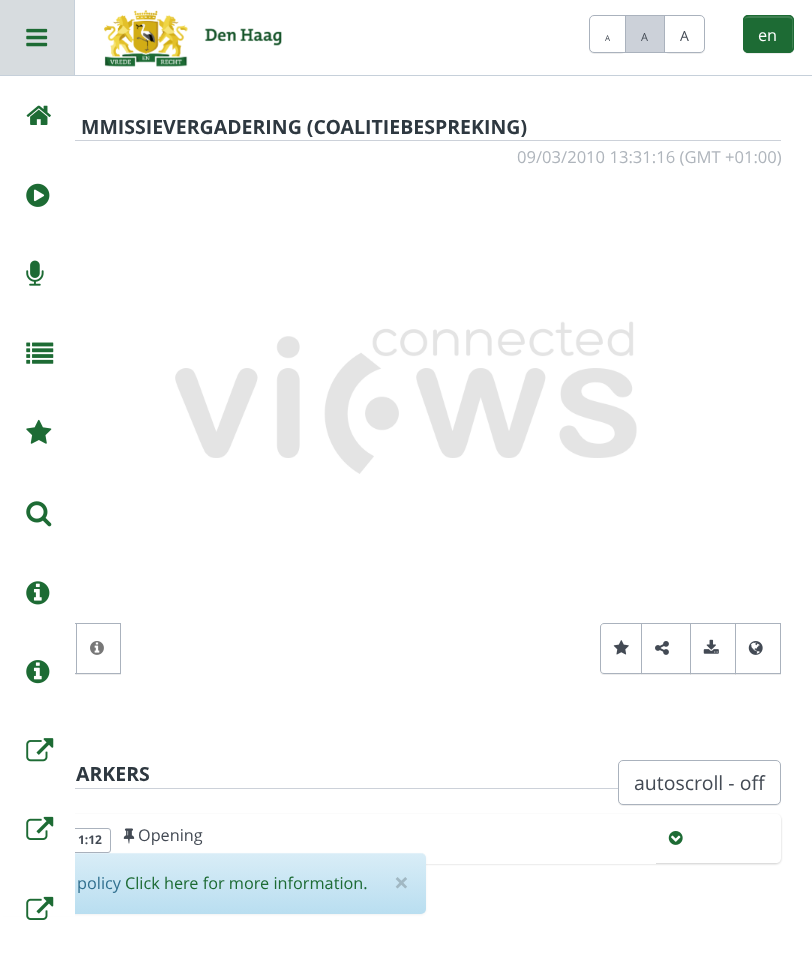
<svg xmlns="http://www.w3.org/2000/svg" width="812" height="969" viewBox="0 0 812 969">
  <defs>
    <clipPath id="clip1"><path d="M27 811H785V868H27ZM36 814H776C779 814 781 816 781 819V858C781 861 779 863 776 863H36C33 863 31 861 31 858V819C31 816 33 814 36 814Z" clip-rule="evenodd"/></clipPath>
    <linearGradient id="g1" gradientUnits="userSpaceOnUse" x1="213" y1="853" x2="213" y2="914"><stop offset="0" stop-color="rgb(217,237,247)"/><stop offset="1" stop-color="rgb(185,222,240)"/></linearGradient>
  </defs>
  <rect width="100%" height="100%" fill="rgb(255,255,255)"/>
  <rect x="74" y="0" width="1" height="75" fill="rgb(198,208,218)"/>
  <rect x="0" y="0" width="74" height="75" fill="rgb(215,220,223)"/>
  <image x="26" y="28" width="22" height="19" href="pic1.png"/>
  <rect x="31" y="624" width="47" height="51" rx="4" fill="rgba(0,0,0,0.07)" filter="blur(0.5px)"/>
  <rect x="75" y="624" width="1" height="49" fill="rgb(255,255,255)"/>
  <rect x="31.5" y="623.5" width="46" height="50" fill="none" stroke="rgb(170,178,189)"/>
  <rect x="76" y="624" width="45" height="51" fill="rgba(0,0,0,0.07)" filter="blur(0.5px)"/>
  <g clip-path="url(#clip1)">
    <rect x="31" y="815" width="750" height="49" rx="5" fill="rgba(0,0,0,0.2)" filter="blur(1px)"/>
  </g>
  <path d="M36 814H651C654 814 656 816 656 819V864H31V819C31 816 33 814 36 814Z" fill="rgb(255,255,255)"/>
  <rect x="45.5" y="828.5" width="65" height="24" rx="2.5" fill="none" stroke="rgb(170,178,189)"/>
  <rect x="0" y="854" width="426" height="61" rx="5" fill="rgba(0,0,0,0.05)" filter="blur(1px)"/>
  <rect x="0" y="853" width="426" height="61" rx="5" fill="url(#g1)"/>
  <path d="M5 854H421C424 854 426 856 426 859C426 856 424 853 421 853H5C2 853 0 856 0 859C0 856 2 854 5 854Z" fill="rgba(255,255,255,0.25)"/>
  <rect x="0" y="623" width="75" height="293" fill="rgb(255,255,255)"/>
  <image x="26" y="105" width="25" height="20" href="pic2.png"/>
  <image x="26" y="183" width="24" height="24" href="pic3.png"/>
  <image x="26" y="260" width="18" height="26" href="pic4.png"/>
  <image x="26" y="342" width="28" height="22" href="pic5.png"/>
  <image x="26" y="419" width="26" height="25" href="pic6.png"/>
  <image x="26" y="501" width="26" height="26" href="pic7.png"/>
  <image x="26" y="581" width="24" height="24" href="pic8.png"/>
  <image x="26" y="660" width="24" height="24" href="pic9.png"/>
  <image x="26" y="738" width="28" height="24" href="pic10.png"/>
  <image x="26" y="816" width="28" height="24" href="pic11.png"/>
  <image x="26" y="896" width="28" height="24" href="pic11.png"/>
  <rect x="0" y="75" width="812" height="1" fill="rgb(198,208,218)"/>
  <image x="104" y="10" width="178" height="57" href="pic12.png"/>
  <rect x="589" y="16" width="37" height="38" rx="5" fill="rgba(0,0,0,0.07)" filter="blur(0.5px)"/>
  <path d="M594 15.5H625.5V52.5H594C591.5 52.5 589.5 50.5 589.5 48V20C589.5 17.5 591.5 15.5 594 15.5Z" fill="rgb(255,255,255)" stroke="rgb(170,178,189)"/>
  <text x="605" y="41" font-family="Open Sans" font-size="8" fill="rgb(67,74,84)">A</text>
  <rect x="664" y="16" width="41" height="38" rx="5" fill="rgba(0,0,0,0.07)" filter="blur(0.5px)"/>
  <path d="M664.5 15.5H700C702.5 15.5 704.5 17.5 704.5 20V48C704.5 50.5 702.5 52.5 700 52.5H664.5Z" fill="rgb(255,255,255)" stroke="rgb(170,178,189)"/>
  <rect x="625.5" y="15.5" width="39" height="37" fill="rgb(204,209,217)" stroke="rgb(170,178,189)"/>
  <text x="641" y="41" font-family="Open Sans" font-size="11" fill="rgb(67,74,84)">A</text>
  <text x="680" y="41" font-family="Open Sans" font-size="14" fill="rgb(67,74,84)">A</text>
  <rect x="743" y="16" width="51" height="38" rx="5" fill="rgba(0,0,0,0.07)" filter="blur(0.5px)"/>
  <rect x="743" y="15" width="51" height="38" rx="5" fill="rgb(29,107,52)"/>
  <path d="M748 18H782C795 18 792 18 792 30V50C794 47 793 37 793 34C793 13 796 16 775 16H755C750 16 744 15 744 21C744 19 745 18 748 18Z" fill="rgb(63,129,82)"/>
  <rect x="743.5" y="15.5" width="50" height="37" rx="4.5" fill="none" stroke="rgb(29,107,52)"/>
  <text x="758" y="41" font-family="Open Sans" font-size="16.25" fill="rgb(255,255,255)">en</text>
  <rect x="75" y="140" width="706" height="1" fill="rgb(204,209,217)"/>
  <text x="81" y="134" font-family="Open Sans" font-size="19.5" font-weight="bold" fill="rgb(46,56,64)">MMISSIEVERGADERING (COALITIEBESPREKING)</text>
  <text x="517" y="163" font-family="Open Sans" font-size="16.6" fill="rgb(175,181,188)">09/03/2010 13:31:16 (GMT +01:00)</text>
  <image x="175" y="321" width="462" height="153" href="pic13.png"/>
  <rect x="76.5" y="623.5" width="44" height="50" fill="rgb(255,255,255)" stroke="rgb(170,178,189)"/>
  <image x="90" y="641" width="14" height="14" href="pic14.png"/>
  <rect x="600" y="624" width="43" height="51" rx="4" fill="rgba(0,0,0,0.07)" filter="blur(0.5px)"/>
  <path d="M604 623.5H642.5V673.5H604C602 673.5 600.5 672 600.5 670V627C600.5 625 602 623.5 604 623.5Z" fill="rgb(255,255,255)" stroke="rgb(170,178,189)"/>
  <image x="613" y="640" width="16" height="15" href="pic15.png"/>
  <rect x="641" y="624" width="50" height="51" fill="rgba(0,0,0,0.07)" filter="blur(0.5px)"/>
  <rect x="641.5" y="623.5" width="49" height="50" fill="rgb(255,255,255)" stroke="rgb(170,178,189)"/>
  <image x="655" y="641" width="14" height="14" href="pic16.png"/>
  <rect x="690" y="624" width="46" height="51" fill="rgba(0,0,0,0.07)" filter="blur(0.5px)"/>
  <rect x="690.5" y="623.5" width="45" height="50" fill="rgb(255,255,255)" stroke="rgb(170,178,189)"/>
  <image x="703" y="639" width="16" height="15" href="pic17.png"/>
  <rect x="735" y="624" width="46" height="51" fill="rgba(0,0,0,0.07)" filter="blur(0.5px)"/>
  <rect x="735.5" y="623.5" width="45" height="50" fill="rgb(255,255,255)" stroke="rgb(170,178,189)"/>
  <image x="748" y="641" width="15" height="14" href="pic18.png"/>
  <rect x="75" y="788" width="543" height="1" fill="rgb(204,209,217)"/>
  <text x="76" y="781" font-family="Open Sans" font-size="19.5" font-weight="bold" fill="rgb(46,56,64)">ARKERS</text>
  <rect x="618" y="761" width="163" height="45" rx="5" fill="rgba(0,0,0,0.07)" filter="blur(0.5px)"/>
  <rect x="618.5" y="760.5" width="162" height="44" rx="4.5" fill="rgb(255,255,255)" stroke="rgb(170,178,189)"/>
  <text x="634" y="790" font-family="Open Sans" font-size="19.5" fill="rgb(67,74,84)">autoscroll - off</text>
  <text x="78" y="844" font-family="Open Sans" font-size="12" font-weight="bold" fill="rgb(67,74,84)">1:12</text>
  <image x="123" y="828" width="12" height="16" href="pic19.png"/>
  <text x="138" y="841" font-family="Open Sans" font-size="16.25" fill="rgb(67,74,84)">Opening</text>
  <image x="668" y="831" width="15" height="14" href="pic20.png"/>
  <text x="77" y="889" font-family="Open Sans" font-size="16.25" fill="rgb(49,112,143)">policy</text>
  <text x="125" y="889" font-family="Open Sans" font-size="16.25" fill="rgb(29,107,52)">Click here for more information.</text>
  <text x="394" y="892" font-family="Open Sans" font-size="26" font-weight="bold" fill="rgb(161,184,195)">×</text>
</svg>
